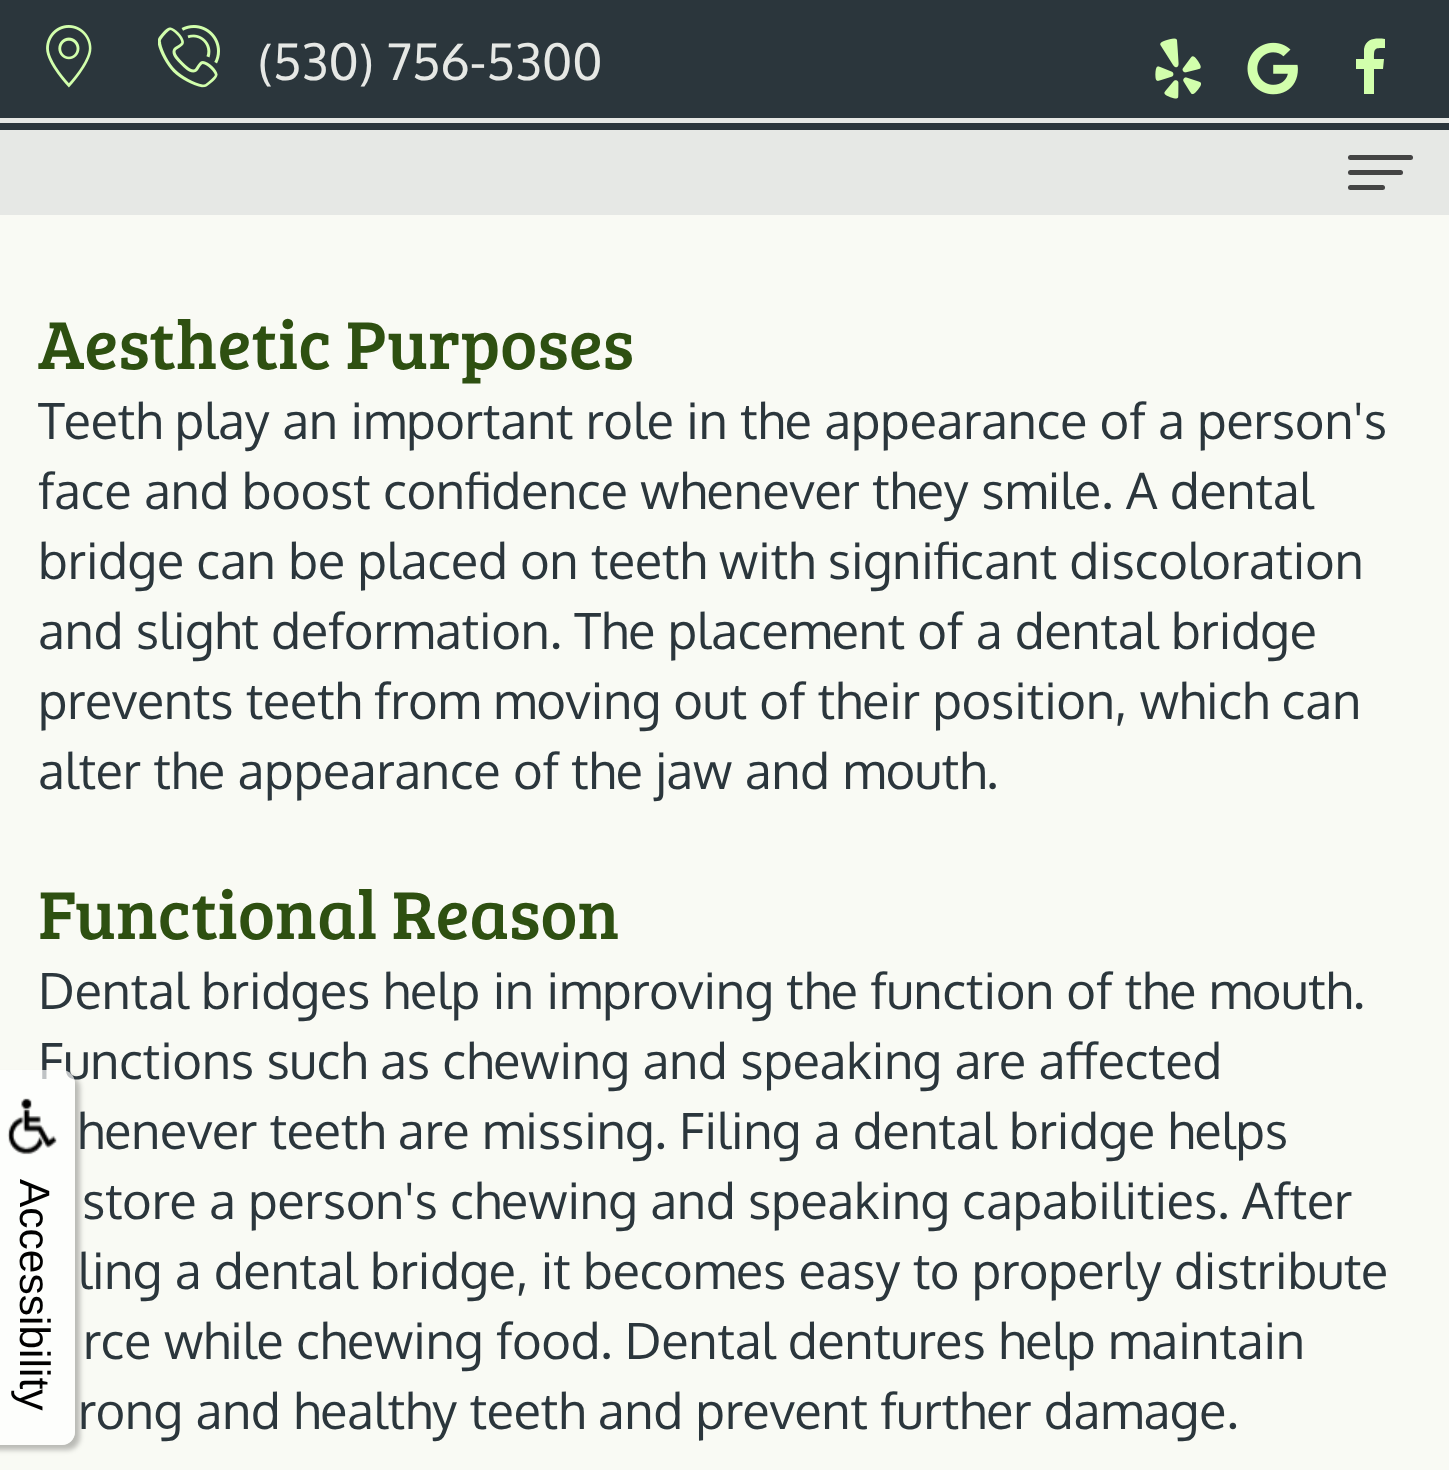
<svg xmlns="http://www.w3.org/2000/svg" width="1449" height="1470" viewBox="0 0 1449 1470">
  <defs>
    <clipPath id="clip1"><path d="M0 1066H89V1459H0ZM-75 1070H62C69 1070 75 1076 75 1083V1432C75 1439 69 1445 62 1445H-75Z" clip-rule="evenodd"/></clipPath>
  </defs>
  <rect width="100%" height="100%" fill="rgb(249,250,244)"/>
  <rect x="0" y="130" width="1449" height="85" fill="rgb(230,232,229)"/>
  <rect x="0" y="0" width="1449" height="130" fill="rgb(43,54,60)"/>
  <image x="46" y="25" width="46" height="63" href="pic1.png"/>
  <image x="158" y="25" width="62" height="63" href="pic2.png"/>
  <text x="258" y="80" font-family="Oxygen" font-size="50" fill="rgb(230,232,229)">(530) 756-5300</text>
  <image x="1155" y="38" width="46" height="61" href="pic3.png"/>
  <image x="1247" y="42" width="51" height="53" href="pic4.png"/>
  <path d="M1385 39V48C1374 48 1374 48 1374 59H1384L1383 69H1374V94H1364V69H1356V59H1364V49C1366 38 1376 38 1385 39Z" fill="rgb(210,255,172)"/>
  <rect x="0" y="118" width="1449" height="5" fill="rgb(230,232,229)"/>
  <rect x="1348" y="155" width="65" height="5" rx="2.5" fill="rgb(68,68,68)"/>
  <rect x="1348" y="170" width="55" height="5" rx="2.5" fill="rgb(68,68,68)"/>
  <rect x="1348" y="185" width="37" height="5" rx="2.5" fill="rgb(68,68,68)"/>
  <g clip-path="url(#clip1)">
    <rect x="-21" y="1075" width="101" height="375" rx="13" fill="rgba(0,0,0,0.25)" filter="blur(2.5px)"/>
  </g>
  <text x="38" y="1079" font-family="Oxygen" font-size="50" fill="rgb(43,54,60)">Functions such as chewing and speaking are affected</text>
  <path d="M-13 1070H62C69 1070 75 1076 75 1083V1432C75 1439 69 1445 62 1445H-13Z" fill="rgba(255,255,255,0.7)"/>
  <image x="7" y="1098" width="50" height="57" href="pic5.png"/>
  <text x="20" y="1179" transform="rotate(90 20 1179)" font-family="Liberation Sans" font-size="42.5" fill="rgb(0,0,0)">Accessibility</text>
  <text x="38" y="369" font-family="Bree Serif" font-size="70" fill="rgb(46,80,17)">Aesthetic Purposes</text>
  <g font-family="Oxygen" font-size="50" fill="rgb(43,54,60)">
    <text>
      <tspan x="38" y="439">Teeth play an important role in the appearance of a person's</tspan>
      <tspan x="38" y="509">face and boost confidence whenever they smile. A dental</tspan>
      <tspan x="38" y="579">bridge can be placed on teeth with significant discoloration</tspan>
      <tspan x="38" y="649">and slight deformation. The placement of a dental bridge</tspan>
      <tspan x="38" y="719">prevents teeth from moving out of their position, which can</tspan>
      <tspan x="38" y="789">alter the appearance of the jaw and mouth.</tspan>
    </text>
  </g>
  <text x="38" y="939" font-family="Bree Serif" font-size="70" fill="rgb(46,80,17)">Functional Reason</text>
  <g font-family="Oxygen" font-size="50" fill="rgb(43,54,60)">
    <text x="38" y="1009">Dental bridges help in improving the function of the mouth.</text>
    <text x="77" y="1149">henever teeth are missing. Filing a dental bridge helps</text>
    <text x="82" y="1219">store a person's chewing and speaking capabilities. After</text>
    <text x="78" y="1289">ling a dental bridge, it becomes easy to properly distribute</text>
    <text x="83" y="1359">rce while chewing food. Dental dentures help maintain</text>
    <text x="78" y="1429">rong and healthy teeth and prevent further damage.</text>
  </g>
</svg>
